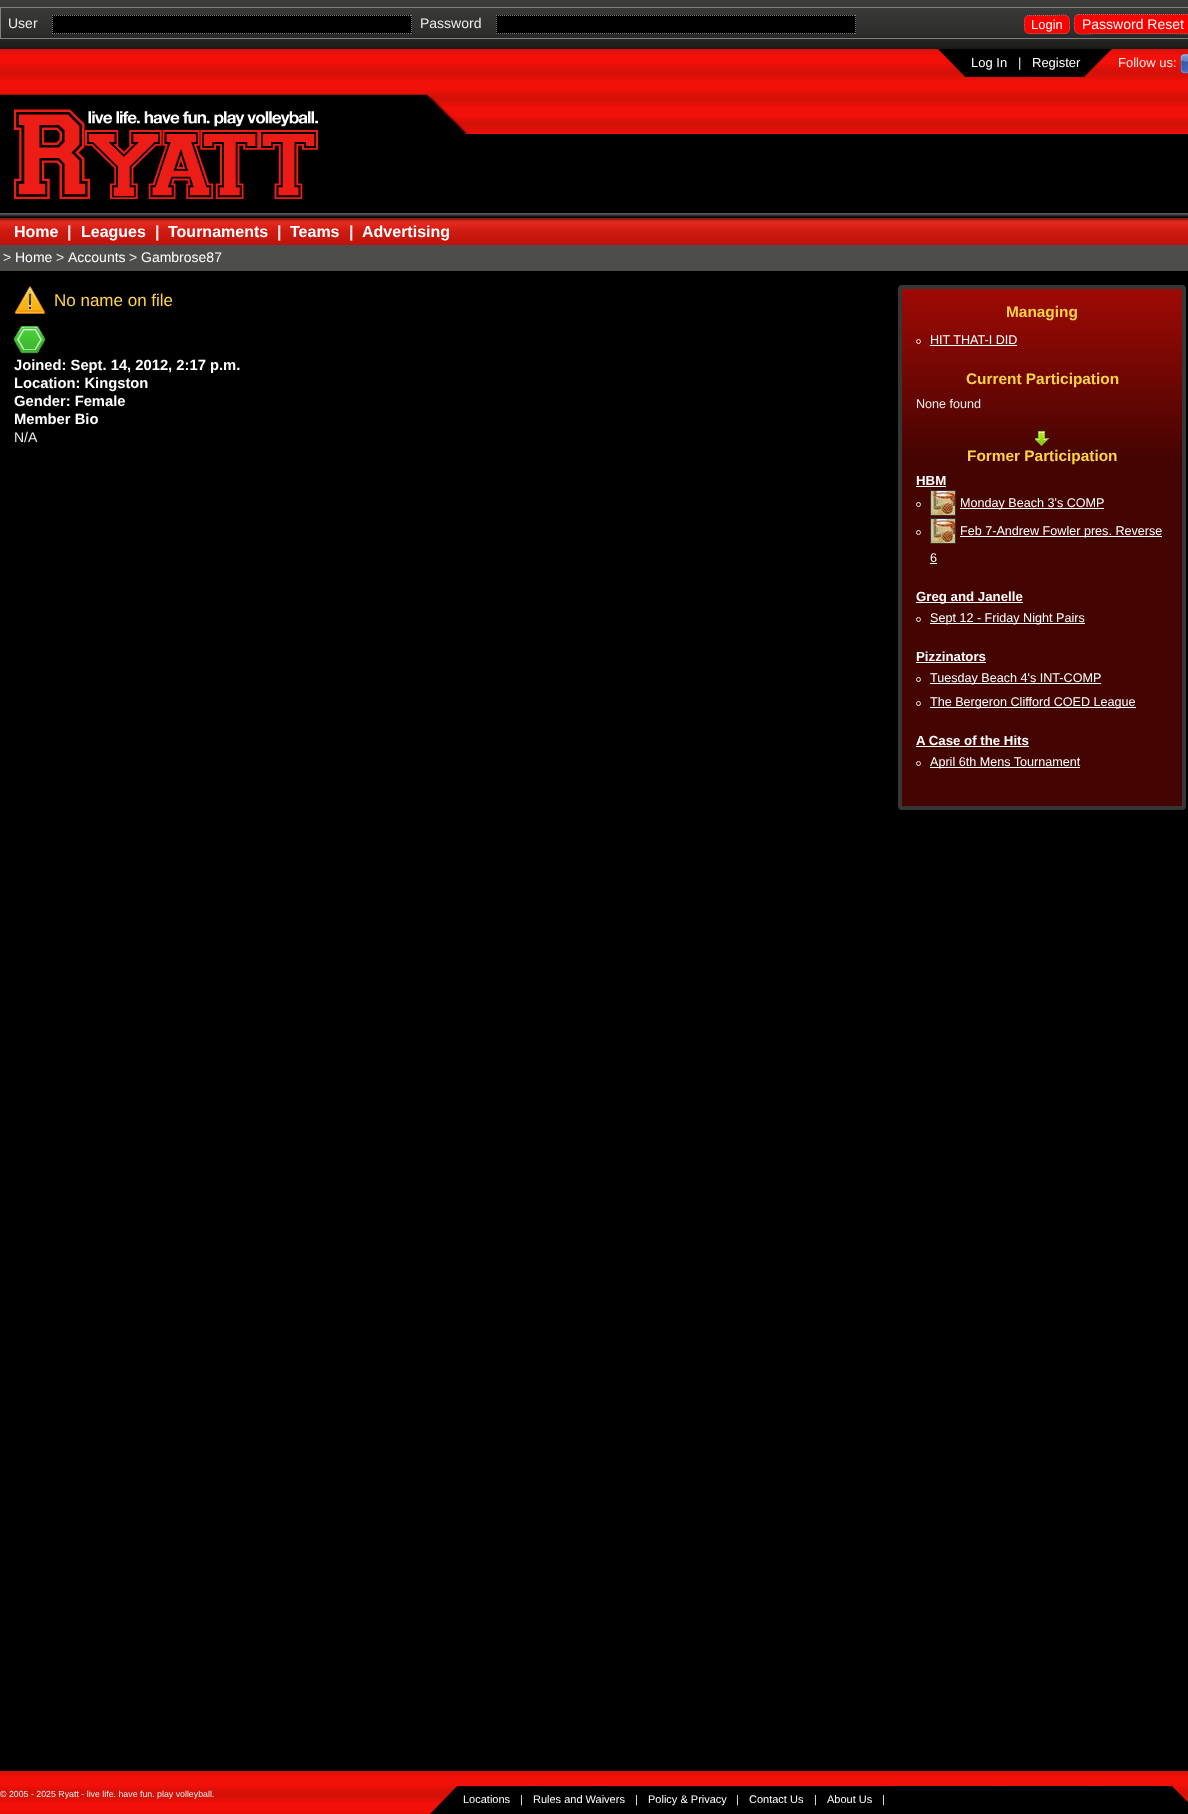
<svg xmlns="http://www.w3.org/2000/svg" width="1188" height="1814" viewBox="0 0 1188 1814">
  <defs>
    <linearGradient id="g1" gradientUnits="userSpaceOnUse" x1="1042" y1="289" x2="1042" y2="806"><stop offset="0" stop-color="rgb(159,10,4)"/><stop offset="0.33" stop-color="rgb(68,4,2)"/><stop offset="1" stop-color="rgb(68,4,2)"/></linearGradient>
  </defs>
  <rect width="100%" height="100%" fill="rgb(0,0,0)"/>
  <image x="0" y="49" width="1188" height="85" href="pic1.png"/>
  <image x="0" y="0" width="1188" height="49" href="pic2.png"/>
  <rect x="0" y="7" width="1188" height="1" fill="rgb(128,128,128)"/>
  <rect x="0" y="38" width="1188" height="1" fill="rgb(128,128,128)"/>
  <rect x="0" y="7" width="1" height="32" fill="rgb(128,128,128)"/>
  <text x="8" y="28" font-family="Liberation Sans" font-size="14" fill="rgb(235,235,235)">User</text>
  <rect x="52" y="15" width="360" height="19" fill="rgb(0,0,0)"/>
  <path d="M52 15.5H412" fill="none" stroke="rgb(128,128,128)" stroke-dasharray="1 1"/>
  <path d="M411.5 15V34" fill="none" stroke="rgb(128,128,128)" stroke-dasharray="1 1"/>
  <path d="M52 33.5H412" fill="none" stroke="rgb(128,128,128)" stroke-dasharray="1 1"/>
  <path d="M52.5 15V34" fill="none" stroke="rgb(128,128,128)" stroke-dasharray="1 1"/>
  <text x="420" y="28" font-family="Liberation Sans" font-size="14" fill="rgb(235,235,235)">Password</text>
  <rect x="496" y="15" width="360" height="19" fill="rgb(0,0,0)"/>
  <path d="M496 15.5H856" fill="none" stroke="rgb(128,128,128)" stroke-dasharray="1 1"/>
  <path d="M855.5 15V34" fill="none" stroke="rgb(128,128,128)" stroke-dasharray="1 1"/>
  <path d="M496 33.5H856" fill="none" stroke="rgb(128,128,128)" stroke-dasharray="1 1"/>
  <path d="M496.5 15V34" fill="none" stroke="rgb(128,128,128)" stroke-dasharray="1 1"/>
  <rect x="1024" y="15" width="46" height="19" rx="5" fill="rgb(255,0,0)"/>
  <path d="M1029 15.5H1053C1062.5 15.5 1069.5 12 1069.5 23C1069.5 26.5 1070.5 33.5 1065 33.5H1041C1026.5 33.5 1024.5 36.5 1024.5 23C1024.5 20 1024.5 15.5 1029 15.5Z" fill="none" stroke="rgb(128,128,128)" stroke-dasharray="1 1"/>
  <text x="1031" y="29" font-family="Liberation Sans" font-size="13" fill="rgb(255,255,255)">Login</text>
  <rect x="1074" y="14" width="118" height="20" rx="5" fill="rgb(255,0,0)"/>
  <path d="M1079 14.5H1188C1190 15 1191.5 17 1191.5 19C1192 37.5 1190.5 33.5 1169 33.5H1097C1088.5 33.5 1075 37 1074.5 29C1074.5 25 1072.5 14.5 1079 14.5Z" fill="none" stroke="rgb(128,128,128)" stroke-dasharray="1 1"/>
  <text x="1082" y="29" font-family="Liberation Sans" font-size="14" fill="rgb(255,255,255)">Password Reset</text>
  <image x="938" y="49" width="142" height="28" href="pic3.png"/>
  <text x="971" y="67" font-family="Liberation Sans" font-size="13" fill="rgb(255,255,255)">Log In</text>
  <text x="1018" y="67" font-family="Liberation Sans" font-size="13" fill="rgb(235,235,235)">|</text>
  <image x="1032" y="49" width="80" height="28" href="pic4.png"/>
  <text x="1032" y="67" font-family="Liberation Sans" font-size="13" fill="rgb(255,255,255)">Register</text>
  <text x="1118" y="67" font-family="Liberation Sans" font-size="13" fill="rgb(235,235,235)">Follow us:</text>
  <image x="1180" y="54" width="8" height="20" href="pic5.png"/>
  <image x="14" y="109" width="304" height="90" href="pic6.png"/>
  <image x="0" y="213" width="1188" height="32" href="pic7.png"/>
  <text x="14" y="237" font-family="Liberation Sans" font-size="16" font-weight="bold" fill="rgb(255,255,255)">Home</text>
  <text x="67" y="237" font-family="Liberation Sans" font-size="16" font-weight="bold" fill="rgb(235,235,235)">|</text>
  <text x="81" y="237" font-family="Liberation Sans" font-size="16" font-weight="bold" fill="rgb(255,255,255)">Leagues</text>
  <text x="155" y="237" font-family="Liberation Sans" font-size="16" font-weight="bold" fill="rgb(235,235,235)">|</text>
  <text x="168" y="237" font-family="Liberation Sans" font-size="16" font-weight="bold" fill="rgb(255,255,255)">Tournaments</text>
  <text x="277" y="237" font-family="Liberation Sans" font-size="16" font-weight="bold" fill="rgb(235,235,235)">|</text>
  <text x="290" y="237" font-family="Liberation Sans" font-size="16" font-weight="bold" fill="rgb(255,255,255)">Teams</text>
  <text x="349" y="237" font-family="Liberation Sans" font-size="16" font-weight="bold" fill="rgb(235,235,235)">|</text>
  <text x="362" y="237" font-family="Liberation Sans" font-size="16" font-weight="bold" fill="rgb(255,255,255)">Advertising</text>
  <rect x="0" y="245" width="1188" height="26" fill="rgb(77,77,76)"/>
  <text x="3" y="262" font-family="Liberation Sans" font-size="14" fill="rgb(235,235,235)">&gt;</text>
  <text x="15" y="262" font-family="Liberation Sans" font-size="14" fill="rgb(255,255,255)">Home</text>
  <text x="56" y="262" font-family="Liberation Sans" font-size="14" fill="rgb(235,235,235)">&gt;</text>
  <text x="68" y="262" font-family="Liberation Sans" font-size="14" fill="rgb(255,255,255)">Accounts</text>
  <text x="129" y="262" font-family="Liberation Sans" font-size="14" fill="rgb(235,235,235)">&gt;</text>
  <text x="141" y="262" font-family="Liberation Sans" font-size="14" fill="rgb(255,255,255)">Gambrose87</text>
  <image x="14" y="286" width="31" height="28" href="pic8.png"/>
  <text x="54" y="306" font-family="Liberation Sans" font-size="17" fill="rgb(255,211,69)">No name on file</text>
  <image x="14" y="326" width="31" height="28" href="pic9.png"/>
  <g font-family="Liberation Sans" font-size="14.75" font-weight="bold" fill="rgb(255,255,255)">
    <text>
      <tspan x="14" y="370">Joined: Sept. 14, 2012, 2:17 p.m.</tspan>
      <tspan x="14" y="388">Location: Kingston</tspan>
      <tspan x="14" y="406">Gender: Female</tspan>
      <tspan x="14" y="424">Member Bio</tspan>
    </text>
  </g>
  <text x="14" y="442" font-family="Liberation Sans" font-size="14" fill="rgb(235,235,235)">N/A</text>
  <rect x="902" y="289" width="280" height="517" fill="url(#g1)"/>
  <rect x="900" y="287" width="284" height="521" rx="2" fill="none" stroke="rgb(55,54,54)" stroke-width="4"/>
  <text x="1006" y="317" font-family="Liberation Sans" font-size="15.4" font-weight="bold" fill="rgb(255,211,69)">Managing</text>
  <circle cx="918.5" cy="341.5" r="2" fill="none" stroke="rgb(235,235,235)"/>
  <text x="930" y="344" font-family="Liberation Sans" font-size="12.6" fill="rgb(255,255,255)">HIT THAT-I DID</text>
  <rect x="930" y="345" width="87" height="1" fill="rgb(255,255,255)"/>
  <text x="966" y="384" font-family="Liberation Sans" font-size="15.4" font-weight="bold" fill="rgb(255,211,69)">Current Participation</text>
  <text x="916" y="408" font-family="Liberation Sans" font-size="12.6" fill="rgb(235,235,235)">None found</text>
  <image x="1035" y="431" width="14" height="16" href="pic10.png"/>
  <text x="967" y="461" font-family="Liberation Sans" font-size="15.4" font-weight="bold" fill="rgb(255,211,69)">Former Participation</text>
  <text x="916" y="485" font-family="Liberation Sans" font-size="13.25" font-weight="bold" fill="rgb(255,255,255)">HBM</text>
  <rect x="916" y="486" width="30" height="1" fill="rgb(255,255,255)"/>
  <rect x="930.5" y="490.5" width="25" height="25" fill="none" stroke="rgb(51,51,51)"/>
  <circle cx="918.5" cy="504.5" r="2" fill="none" stroke="rgb(235,235,235)"/>
  <image x="931" y="491" width="24" height="24" href="pic11.png"/>
  <rect x="960" y="508" width="144" height="1" fill="rgb(255,255,255)"/>
  <text x="960" y="507" font-family="Liberation Sans" font-size="12.6" fill="rgb(255,255,255)">Monday Beach 3's COMP</text>
  <rect x="930.5" y="518.5" width="25" height="25" fill="none" stroke="rgb(51,51,51)"/>
  <circle cx="918.5" cy="532.5" r="2" fill="none" stroke="rgb(235,235,235)"/>
  <image x="931" y="519" width="24" height="24" href="pic11.png"/>
  <rect x="960" y="536" width="202" height="1" fill="rgb(255,255,255)"/>
  <g font-family="Liberation Sans" font-size="12.6" fill="rgb(255,255,255)">
    <text x="960" y="535">Feb 7-Andrew Fowler pres. Reverse</text>
    <text x="930" y="562">6</text>
  </g>
  <rect x="930" y="563" width="7" height="1" fill="rgb(255,255,255)"/>
  <rect x="916" y="602" width="107" height="1" fill="rgb(255,255,255)"/>
  <text x="916" y="601" font-family="Liberation Sans" font-size="13.25" font-weight="bold" fill="rgb(255,255,255)">Greg and Janelle</text>
  <circle cx="918.5" cy="619.5" r="2" fill="none" stroke="rgb(235,235,235)"/>
  <rect x="930" y="623" width="155" height="1" fill="rgb(255,255,255)"/>
  <text x="930" y="622" font-family="Liberation Sans" font-size="12.6" fill="rgb(255,255,255)">Sept 12 - Friday Night Pairs</text>
  <text x="916" y="661" font-family="Liberation Sans" font-size="13.25" font-weight="bold" fill="rgb(255,255,255)">Pizzinators</text>
  <rect x="916" y="662" width="70" height="1" fill="rgb(255,255,255)"/>
  <circle cx="918.5" cy="679.5" r="2" fill="none" stroke="rgb(235,235,235)"/>
  <rect x="930" y="683" width="171" height="1" fill="rgb(255,255,255)"/>
  <text x="930" y="682" font-family="Liberation Sans" font-size="12.6" fill="rgb(255,255,255)">Tuesday Beach 4's INT-COMP</text>
  <circle cx="918.5" cy="703.5" r="2" fill="none" stroke="rgb(235,235,235)"/>
  <rect x="930" y="707" width="206" height="1" fill="rgb(255,255,255)"/>
  <text x="930" y="706" font-family="Liberation Sans" font-size="12.6" fill="rgb(255,255,255)">The Bergeron Clifford COED League</text>
  <text x="916" y="745" font-family="Liberation Sans" font-size="13.25" font-weight="bold" fill="rgb(255,255,255)">A Case of the Hits</text>
  <rect x="916" y="746" width="113" height="1" fill="rgb(255,255,255)"/>
  <circle cx="918.5" cy="763.5" r="2" fill="none" stroke="rgb(235,235,235)"/>
  <rect x="930" y="767" width="150" height="1" fill="rgb(255,255,255)"/>
  <text x="930" y="766" font-family="Liberation Sans" font-size="12.6" fill="rgb(255,255,255)">April 6th Mens Tournament</text>
  <image x="0" y="1771" width="1188" height="43" href="pic12.png"/>
  <text x="0" y="1797" font-family="Liberation Sans" font-size="8.8" fill="rgb(235,235,235)">© 2005 - 2025 Ryatt - live life. have fun. play volleyball.</text>
  <image x="430" y="1786" width="736" height="28" href="pic13.png"/>
  <text x="463" y="1803" font-family="Liberation Sans" font-size="11" fill="rgb(255,255,255)">Locations</text>
  <text x="520" y="1803" font-family="Liberation Sans" font-size="11" fill="rgb(235,235,235)">|</text>
  <text x="533" y="1803" font-family="Liberation Sans" font-size="11" fill="rgb(255,255,255)">Rules and Waivers</text>
  <text x="635" y="1803" font-family="Liberation Sans" font-size="11" fill="rgb(235,235,235)">|</text>
  <text x="648" y="1803" font-family="Liberation Sans" font-size="11" fill="rgb(255,255,255)">Policy &amp; Privacy</text>
  <text x="736" y="1803" font-family="Liberation Sans" font-size="11" fill="rgb(235,235,235)">|</text>
  <text x="749" y="1803" font-family="Liberation Sans" font-size="11" fill="rgb(255,255,255)">Contact Us</text>
  <text x="814" y="1803" font-family="Liberation Sans" font-size="11" fill="rgb(235,235,235)">|</text>
  <text x="827" y="1803" font-family="Liberation Sans" font-size="11" fill="rgb(255,255,255)">About Us</text>
  <text x="882" y="1803" font-family="Liberation Sans" font-size="11" fill="rgb(235,235,235)">|</text>
  <image x="895" y="1786" width="293" height="28" href="pic14.png"/>
</svg>
